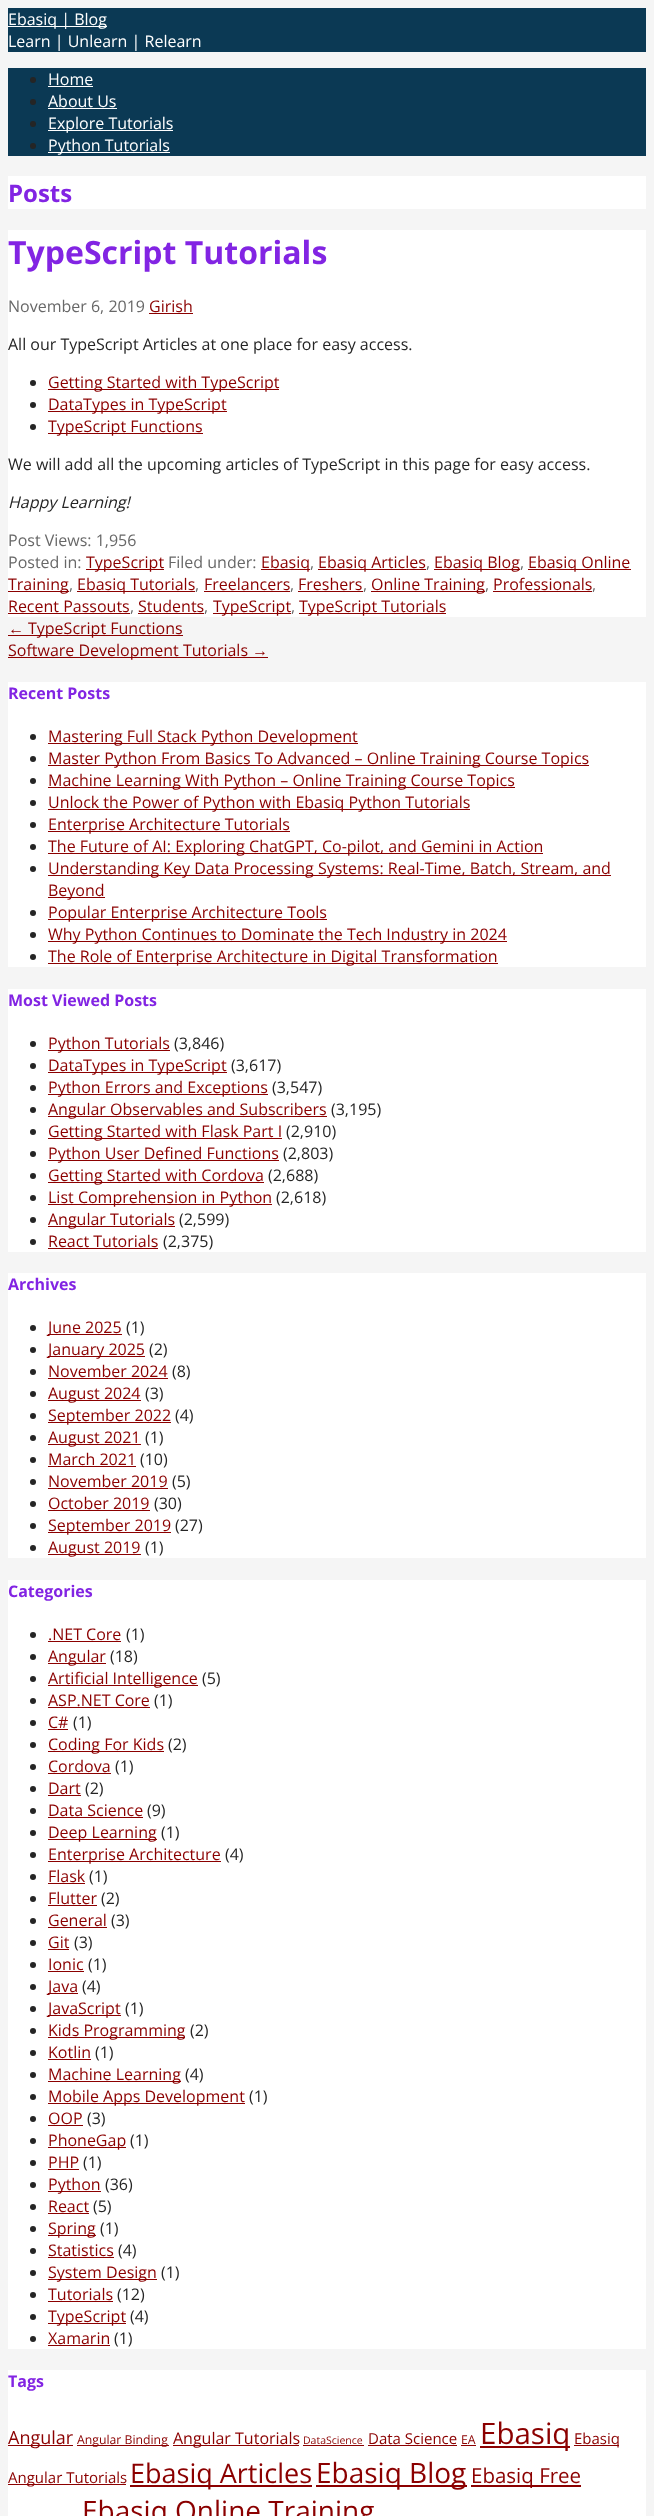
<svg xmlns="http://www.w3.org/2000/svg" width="654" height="2516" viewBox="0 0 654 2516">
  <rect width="100%" height="100%" fill="rgb(245,245,245)"/>
  <rect x="8" y="8" width="638" height="44" fill="rgb(11,57,84)"/>
  <rect x="8" y="26" width="99" height="1" fill="rgb(255,255,255)"/>
  <g font-family="Open Sans" font-size="16" fill="rgb(255,255,255)">
    <text>
      <tspan x="8" y="25">Ebasiq | Blog</tspan>
      <tspan x="8" y="47">Learn | Unlearn | Relearn</tspan>
    </text>
  </g>
  <rect x="8" y="68" width="638" height="88" fill="rgb(11,57,84)"/>
  <circle cx="33" cy="80" r="3" fill="rgb(37,37,37)"/>
  <text x="48" y="85" font-family="Open Sans" font-size="16" fill="rgb(255,255,255)">Home</text>
  <rect x="48" y="86" width="45" height="1" fill="rgb(255,255,255)"/>
  <circle cx="33" cy="102" r="3" fill="rgb(37,37,37)"/>
  <text x="48" y="107" font-family="Open Sans" font-size="16" fill="rgb(255,255,255)">About Us</text>
  <rect x="48" y="108" width="69" height="1" fill="rgb(255,255,255)"/>
  <circle cx="33" cy="124" r="3" fill="rgb(37,37,37)"/>
  <rect x="48" y="130" width="125" height="1" fill="rgb(255,255,255)"/>
  <text x="48" y="129" font-family="Open Sans" font-size="16" fill="rgb(255,255,255)">Explore Tutorials</text>
  <circle cx="33" cy="146" r="3" fill="rgb(37,37,37)"/>
  <rect x="48" y="152" width="122" height="1" fill="rgb(255,255,255)"/>
  <text x="48" y="151" font-family="Open Sans" font-size="16" fill="rgb(255,255,255)">Python Tutorials</text>
  <rect x="8" y="176" width="638" height="33" fill="rgb(255,255,255)"/>
  <text x="8" y="202" font-family="Open Sans" font-size="24" font-weight="bold" fill="rgb(130,36,227)">Posts</text>
  <rect x="8" y="230" width="638" height="387" fill="rgb(255,255,255)"/>
  <text x="8" y="264" font-family="Open Sans" font-size="32" font-weight="bold" fill="rgb(130,36,227)">TypeScript Tutorials</text>
  <text x="8" y="312" font-family="Open Sans" font-size="16" fill="rgb(104,104,104)">November 6, 2019</text>
  <text x="149" y="312" font-family="Open Sans" font-size="16" fill="rgb(139,0,0)">Girish</text>
  <rect x="149" y="313" width="44" height="1" fill="rgb(139,0,0)"/>
  <text x="8" y="350" font-family="Open Sans" font-size="16" fill="rgb(37,37,37)">All our TypeScript Articles at one place for easy access.</text>
  <circle cx="33" cy="383" r="3" fill="rgb(37,37,37)"/>
  <rect x="48" y="389" width="231" height="1" fill="rgb(139,0,0)"/>
  <text x="48" y="388" font-family="Open Sans" font-size="16" fill="rgb(139,0,0)">Getting Started with TypeScript</text>
  <circle cx="33" cy="405" r="3" fill="rgb(37,37,37)"/>
  <rect x="48" y="411" width="179" height="1" fill="rgb(139,0,0)"/>
  <text x="48" y="410" font-family="Open Sans" font-size="16" fill="rgb(139,0,0)">DataTypes in TypeScript</text>
  <circle cx="33" cy="427" r="3" fill="rgb(37,37,37)"/>
  <rect x="48" y="433" width="155" height="1" fill="rgb(139,0,0)"/>
  <text x="48" y="432" font-family="Open Sans" font-size="16" fill="rgb(139,0,0)">TypeScript Functions</text>
  <text x="8" y="470" font-family="Open Sans" font-size="16" fill="rgb(37,37,37)">We will add all the upcoming articles of TypeScript in this page for easy access.</text>
  <text x="8" y="508" font-family="Open Sans" font-size="16" font-style="italic" fill="rgb(37,37,37)">Happy Learning!</text>
  <g font-family="Open Sans" font-size="16" fill="rgb(104,104,104)">
    <text>
      <tspan x="8" y="546">Post Views: 1,956</tspan>
      <tspan x="8" y="568">Posted in:</tspan>
    </text>
  </g>
  <rect x="86" y="569" width="78" height="1" fill="rgb(139,0,0)"/>
  <text x="86" y="568" font-family="Open Sans" font-size="16" fill="rgb(139,0,0)">TypeScript</text>
  <text x="168" y="568" font-family="Open Sans" font-size="16" fill="rgb(104,104,104)">Filed under:</text>
  <rect x="261" y="569" width="49" height="1" fill="rgb(139,0,0)"/>
  <text x="261" y="568" font-family="Open Sans" font-size="16" fill="rgb(139,0,0)">Ebasiq</text>
  <text x="310" y="568" font-family="Open Sans" font-size="16" fill="rgb(104,104,104)">,</text>
  <rect x="318" y="569" width="108" height="1" fill="rgb(139,0,0)"/>
  <text x="318" y="568" font-family="Open Sans" font-size="16" fill="rgb(139,0,0)">Ebasiq Articles</text>
  <text x="426" y="568" font-family="Open Sans" font-size="16" fill="rgb(104,104,104)">,</text>
  <rect x="434" y="569" width="86" height="1" fill="rgb(139,0,0)"/>
  <text x="434" y="568" font-family="Open Sans" font-size="16" fill="rgb(139,0,0)">Ebasiq Blog</text>
  <text x="520" y="568" font-family="Open Sans" font-size="16" fill="rgb(104,104,104)">,</text>
  <rect x="528" y="569" width="103" height="1" fill="rgb(139,0,0)"/>
  <text x="528" y="568" font-family="Open Sans" font-size="16" fill="rgb(139,0,0)">Ebasiq Online</text>
  <rect x="8" y="591" width="61" height="1" fill="rgb(139,0,0)"/>
  <text x="8" y="590" font-family="Open Sans" font-size="16" fill="rgb(139,0,0)">Training</text>
  <text x="69" y="590" font-family="Open Sans" font-size="16" fill="rgb(104,104,104)">,</text>
  <rect x="77" y="591" width="118" height="1" fill="rgb(139,0,0)"/>
  <text x="77" y="590" font-family="Open Sans" font-size="16" fill="rgb(139,0,0)">Ebasiq Tutorials</text>
  <text x="195" y="590" font-family="Open Sans" font-size="16" fill="rgb(104,104,104)">,</text>
  <text x="204" y="590" font-family="Open Sans" font-size="16" fill="rgb(139,0,0)">Freelancers</text>
  <text x="290" y="590" font-family="Open Sans" font-size="16" fill="rgb(104,104,104)">,</text>
  <rect x="204" y="591" width="86" height="1" fill="rgb(139,0,0)"/>
  <text x="298" y="590" font-family="Open Sans" font-size="16" fill="rgb(139,0,0)">Freshers</text>
  <text x="363" y="590" font-family="Open Sans" font-size="16" fill="rgb(104,104,104)">,</text>
  <rect x="298" y="591" width="65" height="1" fill="rgb(139,0,0)"/>
  <rect x="371" y="591" width="114" height="1" fill="rgb(139,0,0)"/>
  <text x="371" y="590" font-family="Open Sans" font-size="16" fill="rgb(139,0,0)">Online Training</text>
  <text x="485" y="590" font-family="Open Sans" font-size="16" fill="rgb(104,104,104)">,</text>
  <text x="493" y="590" font-family="Open Sans" font-size="16" fill="rgb(139,0,0)">Professionals</text>
  <text x="592" y="590" font-family="Open Sans" font-size="16" fill="rgb(104,104,104)">,</text>
  <rect x="493" y="591" width="99" height="1" fill="rgb(139,0,0)"/>
  <text x="8" y="612" font-family="Open Sans" font-size="16" fill="rgb(139,0,0)">Recent Passouts</text>
  <text x="130" y="612" font-family="Open Sans" font-size="16" fill="rgb(104,104,104)">,</text>
  <rect x="8" y="613" width="122" height="1" fill="rgb(139,0,0)"/>
  <text x="138" y="612" font-family="Open Sans" font-size="16" fill="rgb(139,0,0)">Students</text>
  <text x="204" y="612" font-family="Open Sans" font-size="16" fill="rgb(104,104,104)">,</text>
  <rect x="138" y="613" width="66" height="1" fill="rgb(139,0,0)"/>
  <rect x="213" y="613" width="78" height="1" fill="rgb(139,0,0)"/>
  <text x="213" y="612" font-family="Open Sans" font-size="16" fill="rgb(139,0,0)">TypeScript</text>
  <text x="291" y="612" font-family="Open Sans" font-size="16" fill="rgb(104,104,104)">,</text>
  <rect x="299" y="613" width="147" height="1" fill="rgb(139,0,0)"/>
  <text x="299" y="612" font-family="Open Sans" font-size="16" fill="rgb(139,0,0)">TypeScript Tutorials</text>
  <text x="8" y="634" font-family="Liberation Sans" font-size="16" fill="rgb(139,0,0)">←</text>
  <rect x="8" y="635" width="175" height="1" fill="rgb(139,0,0)"/>
  <text x="28" y="634" font-family="Open Sans" font-size="16" fill="rgb(139,0,0)">TypeScript Functions</text>
  <rect x="8" y="657" width="260" height="1" fill="rgb(139,0,0)"/>
  <text x="8" y="656" font-family="Open Sans" font-size="16" fill="rgb(139,0,0)">Software Development Tutorials</text>
  <text x="252" y="656" font-family="Liberation Sans" font-size="16" fill="rgb(139,0,0)">→</text>
  <rect x="8" y="682" width="638" height="285" fill="rgb(255,255,255)"/>
  <text x="8" y="699" font-family="Open Sans" font-size="16" font-weight="bold" fill="rgb(130,36,227)">Recent Posts</text>
  <circle cx="33" cy="737" r="3" fill="rgb(37,37,37)"/>
  <rect x="48" y="743" width="310" height="1" fill="rgb(139,0,0)"/>
  <text x="48" y="742" font-family="Open Sans" font-size="16" fill="rgb(139,0,0)">Mastering Full Stack Python Development</text>
  <circle cx="33" cy="759" r="3" fill="rgb(37,37,37)"/>
  <rect x="48" y="765" width="541" height="1" fill="rgb(139,0,0)"/>
  <text x="48" y="764" font-family="Open Sans" font-size="16" fill="rgb(139,0,0)">Master Python From Basics To Advanced – Online Training Course Topics</text>
  <circle cx="33" cy="781" r="3" fill="rgb(37,37,37)"/>
  <rect x="48" y="787" width="467" height="1" fill="rgb(139,0,0)"/>
  <text x="48" y="786" font-family="Open Sans" font-size="16" fill="rgb(139,0,0)">Machine Learning With Python – Online Training Course Topics</text>
  <circle cx="33" cy="803" r="3" fill="rgb(37,37,37)"/>
  <rect x="48" y="809" width="422" height="1" fill="rgb(139,0,0)"/>
  <text x="48" y="808" font-family="Open Sans" font-size="16" fill="rgb(139,0,0)">Unlock the Power of Python with Ebasiq Python Tutorials</text>
  <circle cx="33" cy="825" r="3" fill="rgb(37,37,37)"/>
  <rect x="48" y="831" width="242" height="1" fill="rgb(139,0,0)"/>
  <text x="48" y="830" font-family="Open Sans" font-size="16" fill="rgb(139,0,0)">Enterprise Architecture Tutorials</text>
  <circle cx="33" cy="847" r="3" fill="rgb(37,37,37)"/>
  <rect x="48" y="853" width="495" height="1" fill="rgb(139,0,0)"/>
  <text x="48" y="852" font-family="Open Sans" font-size="16" fill="rgb(139,0,0)">The Future of AI: Exploring ChatGPT, Co-pilot, and Gemini in Action</text>
  <circle cx="33" cy="869" r="3" fill="rgb(37,37,37)"/>
  <rect x="48" y="875" width="563" height="1" fill="rgb(139,0,0)"/>
  <text x="48" y="874" font-family="Open Sans" font-size="16" fill="rgb(139,0,0)">Understanding Key Data Processing Systems: Real-Time, Batch, Stream, and</text>
  <rect x="48" y="897" width="57" height="1" fill="rgb(139,0,0)"/>
  <text x="48" y="896" font-family="Open Sans" font-size="16" fill="rgb(139,0,0)">Beyond</text>
  <circle cx="33" cy="913" r="3" fill="rgb(37,37,37)"/>
  <rect x="48" y="919" width="279" height="1" fill="rgb(139,0,0)"/>
  <text x="48" y="918" font-family="Open Sans" font-size="16" fill="rgb(139,0,0)">Popular Enterprise Architecture Tools</text>
  <circle cx="33" cy="935" r="3" fill="rgb(37,37,37)"/>
  <rect x="48" y="941" width="459" height="1" fill="rgb(139,0,0)"/>
  <text x="48" y="940" font-family="Open Sans" font-size="16" fill="rgb(139,0,0)">Why Python Continues to Dominate the Tech Industry in 2024</text>
  <circle cx="33" cy="957" r="3" fill="rgb(37,37,37)"/>
  <rect x="48" y="963" width="450" height="1" fill="rgb(139,0,0)"/>
  <text x="48" y="962" font-family="Open Sans" font-size="16" fill="rgb(139,0,0)">The Role of Enterprise Architecture in Digital Transformation</text>
  <rect x="8" y="989" width="638" height="263" fill="rgb(255,255,255)"/>
  <text x="8" y="1006" font-family="Open Sans" font-size="16" font-weight="bold" fill="rgb(130,36,227)">Most Viewed Posts</text>
  <circle cx="33" cy="1044" r="3" fill="rgb(37,37,37)"/>
  <rect x="48" y="1050" width="122" height="1" fill="rgb(139,0,0)"/>
  <text x="48" y="1049" font-family="Open Sans" font-size="16" fill="rgb(139,0,0)">Python Tutorials</text>
  <text x="174" y="1049" font-family="Open Sans" font-size="16" fill="rgb(37,37,37)">(3,846)</text>
  <circle cx="33" cy="1066" r="3" fill="rgb(37,37,37)"/>
  <rect x="48" y="1072" width="179" height="1" fill="rgb(139,0,0)"/>
  <text x="48" y="1071" font-family="Open Sans" font-size="16" fill="rgb(139,0,0)">DataTypes in TypeScript</text>
  <text x="231" y="1071" font-family="Open Sans" font-size="16" fill="rgb(37,37,37)">(3,617)</text>
  <circle cx="33" cy="1088" r="3" fill="rgb(37,37,37)"/>
  <rect x="48" y="1094" width="220" height="1" fill="rgb(139,0,0)"/>
  <text x="48" y="1093" font-family="Open Sans" font-size="16" fill="rgb(139,0,0)">Python Errors and Exceptions</text>
  <text x="272" y="1093" font-family="Open Sans" font-size="16" fill="rgb(37,37,37)">(3,547)</text>
  <circle cx="33" cy="1110" r="3" fill="rgb(37,37,37)"/>
  <rect x="48" y="1116" width="279" height="1" fill="rgb(139,0,0)"/>
  <text x="48" y="1115" font-family="Open Sans" font-size="16" fill="rgb(139,0,0)">Angular Observables and Subscribers</text>
  <text x="331" y="1115" font-family="Open Sans" font-size="16" fill="rgb(37,37,37)">(3,195)</text>
  <circle cx="33" cy="1132" r="3" fill="rgb(37,37,37)"/>
  <rect x="48" y="1138" width="234" height="1" fill="rgb(139,0,0)"/>
  <text x="48" y="1137" font-family="Open Sans" font-size="16" fill="rgb(139,0,0)">Getting Started with Flask Part I</text>
  <text x="286" y="1137" font-family="Open Sans" font-size="16" fill="rgb(37,37,37)">(2,910)</text>
  <circle cx="33" cy="1154" r="3" fill="rgb(37,37,37)"/>
  <rect x="48" y="1160" width="231" height="1" fill="rgb(139,0,0)"/>
  <text x="48" y="1159" font-family="Open Sans" font-size="16" fill="rgb(139,0,0)">Python User Defined Functions</text>
  <text x="283" y="1159" font-family="Open Sans" font-size="16" fill="rgb(37,37,37)">(2,803)</text>
  <circle cx="33" cy="1176" r="3" fill="rgb(37,37,37)"/>
  <rect x="48" y="1182" width="216" height="1" fill="rgb(139,0,0)"/>
  <text x="48" y="1181" font-family="Open Sans" font-size="16" fill="rgb(139,0,0)">Getting Started with Cordova</text>
  <text x="268" y="1181" font-family="Open Sans" font-size="16" fill="rgb(37,37,37)">(2,688)</text>
  <circle cx="33" cy="1198" r="3" fill="rgb(37,37,37)"/>
  <rect x="48" y="1204" width="224" height="1" fill="rgb(139,0,0)"/>
  <text x="48" y="1203" font-family="Open Sans" font-size="16" fill="rgb(139,0,0)">List Comprehension in Python</text>
  <text x="276" y="1203" font-family="Open Sans" font-size="16" fill="rgb(37,37,37)">(2,618)</text>
  <circle cx="33" cy="1220" r="3" fill="rgb(37,37,37)"/>
  <rect x="48" y="1226" width="127" height="1" fill="rgb(139,0,0)"/>
  <text x="48" y="1225" font-family="Open Sans" font-size="16" fill="rgb(139,0,0)">Angular Tutorials</text>
  <text x="179" y="1225" font-family="Open Sans" font-size="16" fill="rgb(37,37,37)">(2,599)</text>
  <circle cx="33" cy="1242" r="3" fill="rgb(37,37,37)"/>
  <text x="48" y="1247" font-family="Open Sans" font-size="16" fill="rgb(139,0,0)">React Tutorials</text>
  <rect x="48" y="1248" width="110" height="1" fill="rgb(139,0,0)"/>
  <text x="163" y="1247" font-family="Open Sans" font-size="16" fill="rgb(37,37,37)">(2,375)</text>
  <rect x="8" y="1273" width="638" height="285" fill="rgb(255,255,255)"/>
  <text x="8" y="1290" font-family="Open Sans" font-size="16" font-weight="bold" fill="rgb(130,36,227)">Archives</text>
  <circle cx="33" cy="1328" r="3" fill="rgb(37,37,37)"/>
  <rect x="48" y="1334" width="74" height="1" fill="rgb(139,0,0)"/>
  <text x="48" y="1333" font-family="Open Sans" font-size="16" fill="rgb(139,0,0)">June 2025</text>
  <text x="126" y="1333" font-family="Open Sans" font-size="16" fill="rgb(37,37,37)">(1)</text>
  <circle cx="33" cy="1350" r="3" fill="rgb(37,37,37)"/>
  <rect x="48" y="1356" width="97" height="1" fill="rgb(139,0,0)"/>
  <text x="48" y="1355" font-family="Open Sans" font-size="16" fill="rgb(139,0,0)">January 2025</text>
  <text x="149" y="1355" font-family="Open Sans" font-size="16" fill="rgb(37,37,37)">(2)</text>
  <circle cx="33" cy="1372" r="3" fill="rgb(37,37,37)"/>
  <text x="48" y="1377" font-family="Open Sans" font-size="16" fill="rgb(139,0,0)">November 2024</text>
  <rect x="48" y="1378" width="120" height="1" fill="rgb(139,0,0)"/>
  <text x="172" y="1377" font-family="Open Sans" font-size="16" fill="rgb(37,37,37)">(8)</text>
  <circle cx="33" cy="1394" r="3" fill="rgb(37,37,37)"/>
  <rect x="48" y="1400" width="93" height="1" fill="rgb(139,0,0)"/>
  <text x="48" y="1399" font-family="Open Sans" font-size="16" fill="rgb(139,0,0)">August 2024</text>
  <text x="145" y="1399" font-family="Open Sans" font-size="16" fill="rgb(37,37,37)">(3)</text>
  <circle cx="33" cy="1416" r="3" fill="rgb(37,37,37)"/>
  <rect x="48" y="1422" width="123" height="1" fill="rgb(139,0,0)"/>
  <text x="48" y="1421" font-family="Open Sans" font-size="16" fill="rgb(139,0,0)">September 2022</text>
  <text x="175" y="1421" font-family="Open Sans" font-size="16" fill="rgb(37,37,37)">(4)</text>
  <circle cx="33" cy="1438" r="3" fill="rgb(37,37,37)"/>
  <rect x="48" y="1444" width="93" height="1" fill="rgb(139,0,0)"/>
  <text x="48" y="1443" font-family="Open Sans" font-size="16" fill="rgb(139,0,0)">August 2021</text>
  <text x="145" y="1443" font-family="Open Sans" font-size="16" fill="rgb(37,37,37)">(1)</text>
  <circle cx="33" cy="1460" r="3" fill="rgb(37,37,37)"/>
  <text x="48" y="1465" font-family="Open Sans" font-size="16" fill="rgb(139,0,0)">March 2021</text>
  <rect x="48" y="1466" width="88" height="1" fill="rgb(139,0,0)"/>
  <text x="140" y="1465" font-family="Open Sans" font-size="16" fill="rgb(37,37,37)">(10)</text>
  <circle cx="33" cy="1482" r="3" fill="rgb(37,37,37)"/>
  <text x="48" y="1487" font-family="Open Sans" font-size="16" fill="rgb(139,0,0)">November 2019</text>
  <rect x="48" y="1488" width="120" height="1" fill="rgb(139,0,0)"/>
  <text x="172" y="1487" font-family="Open Sans" font-size="16" fill="rgb(37,37,37)">(5)</text>
  <circle cx="33" cy="1504" r="3" fill="rgb(37,37,37)"/>
  <text x="48" y="1509" font-family="Open Sans" font-size="16" fill="rgb(139,0,0)">October 2019</text>
  <rect x="48" y="1510" width="102" height="1" fill="rgb(139,0,0)"/>
  <text x="154" y="1509" font-family="Open Sans" font-size="16" fill="rgb(37,37,37)">(30)</text>
  <circle cx="33" cy="1526" r="3" fill="rgb(37,37,37)"/>
  <rect x="48" y="1532" width="123" height="1" fill="rgb(139,0,0)"/>
  <text x="48" y="1531" font-family="Open Sans" font-size="16" fill="rgb(139,0,0)">September 2019</text>
  <text x="175" y="1531" font-family="Open Sans" font-size="16" fill="rgb(37,37,37)">(27)</text>
  <circle cx="33" cy="1548" r="3" fill="rgb(37,37,37)"/>
  <rect x="48" y="1554" width="93" height="1" fill="rgb(139,0,0)"/>
  <text x="48" y="1553" font-family="Open Sans" font-size="16" fill="rgb(139,0,0)">August 2019</text>
  <text x="145" y="1553" font-family="Open Sans" font-size="16" fill="rgb(37,37,37)">(1)</text>
  <rect x="8" y="1580" width="638" height="769" fill="rgb(255,255,255)"/>
  <text x="8" y="1597" font-family="Open Sans" font-size="16" font-weight="bold" fill="rgb(130,36,227)">Categories</text>
  <circle cx="33" cy="1635" r="3" fill="rgb(37,37,37)"/>
  <text x="48" y="1640" font-family="Open Sans" font-size="16" fill="rgb(139,0,0)">.NET Core</text>
  <rect x="48" y="1641" width="73" height="1" fill="rgb(139,0,0)"/>
  <text x="126" y="1640" font-family="Open Sans" font-size="16" fill="rgb(37,37,37)">(1)</text>
  <circle cx="33" cy="1657" r="3" fill="rgb(37,37,37)"/>
  <rect x="48" y="1663" width="58" height="1" fill="rgb(139,0,0)"/>
  <text x="48" y="1662" font-family="Open Sans" font-size="16" fill="rgb(139,0,0)">Angular</text>
  <text x="110" y="1662" font-family="Open Sans" font-size="16" fill="rgb(37,37,37)">(18)</text>
  <circle cx="33" cy="1679" r="3" fill="rgb(37,37,37)"/>
  <rect x="48" y="1685" width="150" height="1" fill="rgb(139,0,0)"/>
  <text x="48" y="1684" font-family="Open Sans" font-size="16" fill="rgb(139,0,0)">Artificial Intelligence</text>
  <text x="202" y="1684" font-family="Open Sans" font-size="16" fill="rgb(37,37,37)">(5)</text>
  <circle cx="33" cy="1701" r="3" fill="rgb(37,37,37)"/>
  <text x="48" y="1706" font-family="Open Sans" font-size="16" fill="rgb(139,0,0)">ASP.NET Core</text>
  <rect x="48" y="1707" width="102" height="1" fill="rgb(139,0,0)"/>
  <text x="154" y="1706" font-family="Open Sans" font-size="16" fill="rgb(37,37,37)">(1)</text>
  <circle cx="33" cy="1723" r="3" fill="rgb(37,37,37)"/>
  <text x="48" y="1728" font-family="Open Sans" font-size="16" fill="rgb(139,0,0)">C#</text>
  <rect x="48" y="1729" width="20" height="1" fill="rgb(139,0,0)"/>
  <text x="73" y="1728" font-family="Open Sans" font-size="16" fill="rgb(37,37,37)">(1)</text>
  <circle cx="33" cy="1745" r="3" fill="rgb(37,37,37)"/>
  <rect x="48" y="1751" width="116" height="1" fill="rgb(139,0,0)"/>
  <text x="48" y="1750" font-family="Open Sans" font-size="16" fill="rgb(139,0,0)">Coding For Kids</text>
  <text x="168" y="1750" font-family="Open Sans" font-size="16" fill="rgb(37,37,37)">(2)</text>
  <circle cx="33" cy="1767" r="3" fill="rgb(37,37,37)"/>
  <text x="48" y="1772" font-family="Open Sans" font-size="16" fill="rgb(139,0,0)">Cordova</text>
  <rect x="48" y="1773" width="63" height="1" fill="rgb(139,0,0)"/>
  <text x="115" y="1772" font-family="Open Sans" font-size="16" fill="rgb(37,37,37)">(1)</text>
  <circle cx="33" cy="1789" r="3" fill="rgb(37,37,37)"/>
  <text x="48" y="1794" font-family="Open Sans" font-size="16" fill="rgb(139,0,0)">Dart</text>
  <rect x="48" y="1795" width="33" height="1" fill="rgb(139,0,0)"/>
  <text x="85" y="1794" font-family="Open Sans" font-size="16" fill="rgb(37,37,37)">(2)</text>
  <circle cx="33" cy="1811" r="3" fill="rgb(37,37,37)"/>
  <text x="48" y="1816" font-family="Open Sans" font-size="16" fill="rgb(139,0,0)">Data Science</text>
  <rect x="48" y="1817" width="95" height="1" fill="rgb(139,0,0)"/>
  <text x="147" y="1816" font-family="Open Sans" font-size="16" fill="rgb(37,37,37)">(9)</text>
  <circle cx="33" cy="1833" r="3" fill="rgb(37,37,37)"/>
  <rect x="48" y="1839" width="109" height="1" fill="rgb(139,0,0)"/>
  <text x="48" y="1838" font-family="Open Sans" font-size="16" fill="rgb(139,0,0)">Deep Learning</text>
  <text x="161" y="1838" font-family="Open Sans" font-size="16" fill="rgb(37,37,37)">(1)</text>
  <circle cx="33" cy="1855" r="3" fill="rgb(37,37,37)"/>
  <rect x="48" y="1861" width="173" height="1" fill="rgb(139,0,0)"/>
  <text x="48" y="1860" font-family="Open Sans" font-size="16" fill="rgb(139,0,0)">Enterprise Architecture</text>
  <text x="225" y="1860" font-family="Open Sans" font-size="16" fill="rgb(37,37,37)">(4)</text>
  <circle cx="33" cy="1877" r="3" fill="rgb(37,37,37)"/>
  <text x="48" y="1882" font-family="Open Sans" font-size="16" fill="rgb(139,0,0)">Flask</text>
  <rect x="48" y="1883" width="37" height="1" fill="rgb(139,0,0)"/>
  <text x="89" y="1882" font-family="Open Sans" font-size="16" fill="rgb(37,37,37)">(1)</text>
  <circle cx="33" cy="1899" r="3" fill="rgb(37,37,37)"/>
  <text x="48" y="1904" font-family="Open Sans" font-size="16" fill="rgb(139,0,0)">Flutter</text>
  <rect x="48" y="1905" width="49" height="1" fill="rgb(139,0,0)"/>
  <text x="101" y="1904" font-family="Open Sans" font-size="16" fill="rgb(37,37,37)">(2)</text>
  <circle cx="33" cy="1921" r="3" fill="rgb(37,37,37)"/>
  <text x="48" y="1926" font-family="Open Sans" font-size="16" fill="rgb(139,0,0)">General</text>
  <rect x="48" y="1927" width="59" height="1" fill="rgb(139,0,0)"/>
  <text x="111" y="1926" font-family="Open Sans" font-size="16" fill="rgb(37,37,37)">(3)</text>
  <circle cx="33" cy="1943" r="3" fill="rgb(37,37,37)"/>
  <text x="48" y="1948" font-family="Open Sans" font-size="16" fill="rgb(139,0,0)">Git</text>
  <rect x="48" y="1949" width="21" height="1" fill="rgb(139,0,0)"/>
  <text x="74" y="1948" font-family="Open Sans" font-size="16" fill="rgb(37,37,37)">(3)</text>
  <circle cx="33" cy="1965" r="3" fill="rgb(37,37,37)"/>
  <text x="48" y="1970" font-family="Open Sans" font-size="16" fill="rgb(139,0,0)">Ionic</text>
  <rect x="48" y="1971" width="36" height="1" fill="rgb(139,0,0)"/>
  <text x="88" y="1970" font-family="Open Sans" font-size="16" fill="rgb(37,37,37)">(1)</text>
  <circle cx="33" cy="1987" r="3" fill="rgb(37,37,37)"/>
  <rect x="48" y="1993" width="30" height="1" fill="rgb(139,0,0)"/>
  <text x="48" y="1992" font-family="Open Sans" font-size="16" fill="rgb(139,0,0)">Java</text>
  <text x="82" y="1992" font-family="Open Sans" font-size="16" fill="rgb(37,37,37)">(4)</text>
  <circle cx="33" cy="2009" r="3" fill="rgb(37,37,37)"/>
  <rect x="48" y="2015" width="73" height="1" fill="rgb(139,0,0)"/>
  <text x="48" y="2014" font-family="Open Sans" font-size="16" fill="rgb(139,0,0)">JavaScript</text>
  <text x="125" y="2014" font-family="Open Sans" font-size="16" fill="rgb(37,37,37)">(1)</text>
  <circle cx="33" cy="2031" r="3" fill="rgb(37,37,37)"/>
  <rect x="48" y="2037" width="137" height="1" fill="rgb(139,0,0)"/>
  <text x="48" y="2036" font-family="Open Sans" font-size="16" fill="rgb(139,0,0)">Kids Programming</text>
  <text x="190" y="2036" font-family="Open Sans" font-size="16" fill="rgb(37,37,37)">(2)</text>
  <circle cx="33" cy="2053" r="3" fill="rgb(37,37,37)"/>
  <text x="48" y="2058" font-family="Open Sans" font-size="16" fill="rgb(139,0,0)">Kotlin</text>
  <rect x="48" y="2059" width="43" height="1" fill="rgb(139,0,0)"/>
  <text x="95" y="2058" font-family="Open Sans" font-size="16" fill="rgb(37,37,37)">(1)</text>
  <circle cx="33" cy="2075" r="3" fill="rgb(37,37,37)"/>
  <rect x="48" y="2081" width="133" height="1" fill="rgb(139,0,0)"/>
  <text x="48" y="2080" font-family="Open Sans" font-size="16" fill="rgb(139,0,0)">Machine Learning</text>
  <text x="185" y="2080" font-family="Open Sans" font-size="16" fill="rgb(37,37,37)">(4)</text>
  <circle cx="33" cy="2097" r="3" fill="rgb(37,37,37)"/>
  <rect x="48" y="2103" width="197" height="1" fill="rgb(139,0,0)"/>
  <text x="48" y="2102" font-family="Open Sans" font-size="16" fill="rgb(139,0,0)">Mobile Apps Development</text>
  <text x="249" y="2102" font-family="Open Sans" font-size="16" fill="rgb(37,37,37)">(1)</text>
  <circle cx="33" cy="2119" r="3" fill="rgb(37,37,37)"/>
  <text x="48" y="2124" font-family="Open Sans" font-size="16" fill="rgb(139,0,0)">OOP</text>
  <rect x="48" y="2125" width="35" height="1" fill="rgb(139,0,0)"/>
  <text x="87" y="2124" font-family="Open Sans" font-size="16" fill="rgb(37,37,37)">(3)</text>
  <circle cx="33" cy="2141" r="3" fill="rgb(37,37,37)"/>
  <rect x="48" y="2147" width="78" height="1" fill="rgb(139,0,0)"/>
  <text x="48" y="2146" font-family="Open Sans" font-size="16" fill="rgb(139,0,0)">PhoneGap</text>
  <text x="130" y="2146" font-family="Open Sans" font-size="16" fill="rgb(37,37,37)">(1)</text>
  <circle cx="33" cy="2163" r="3" fill="rgb(37,37,37)"/>
  <text x="48" y="2168" font-family="Open Sans" font-size="16" fill="rgb(139,0,0)">PHP</text>
  <rect x="48" y="2169" width="31" height="1" fill="rgb(139,0,0)"/>
  <text x="83" y="2168" font-family="Open Sans" font-size="16" fill="rgb(37,37,37)">(1)</text>
  <circle cx="33" cy="2185" r="3" fill="rgb(37,37,37)"/>
  <rect x="48" y="2191" width="53" height="1" fill="rgb(139,0,0)"/>
  <text x="48" y="2190" font-family="Open Sans" font-size="16" fill="rgb(139,0,0)">Python</text>
  <text x="105" y="2190" font-family="Open Sans" font-size="16" fill="rgb(37,37,37)">(36)</text>
  <circle cx="33" cy="2207" r="3" fill="rgb(37,37,37)"/>
  <text x="48" y="2212" font-family="Open Sans" font-size="16" fill="rgb(139,0,0)">React</text>
  <rect x="48" y="2213" width="41" height="1" fill="rgb(139,0,0)"/>
  <text x="93" y="2212" font-family="Open Sans" font-size="16" fill="rgb(37,37,37)">(5)</text>
  <circle cx="33" cy="2229" r="3" fill="rgb(37,37,37)"/>
  <rect x="48" y="2235" width="48" height="1" fill="rgb(139,0,0)"/>
  <text x="48" y="2234" font-family="Open Sans" font-size="16" fill="rgb(139,0,0)">Spring</text>
  <text x="100" y="2234" font-family="Open Sans" font-size="16" fill="rgb(37,37,37)">(1)</text>
  <circle cx="33" cy="2251" r="3" fill="rgb(37,37,37)"/>
  <text x="48" y="2256" font-family="Open Sans" font-size="16" fill="rgb(139,0,0)">Statistics</text>
  <rect x="48" y="2257" width="66" height="1" fill="rgb(139,0,0)"/>
  <text x="118" y="2256" font-family="Open Sans" font-size="16" fill="rgb(37,37,37)">(4)</text>
  <circle cx="33" cy="2273" r="3" fill="rgb(37,37,37)"/>
  <rect x="48" y="2279" width="109" height="1" fill="rgb(139,0,0)"/>
  <text x="48" y="2278" font-family="Open Sans" font-size="16" fill="rgb(139,0,0)">System Design</text>
  <text x="161" y="2278" font-family="Open Sans" font-size="16" fill="rgb(37,37,37)">(1)</text>
  <circle cx="33" cy="2295" r="3" fill="rgb(37,37,37)"/>
  <text x="48" y="2300" font-family="Open Sans" font-size="16" fill="rgb(139,0,0)">Tutorials</text>
  <rect x="48" y="2301" width="65" height="1" fill="rgb(139,0,0)"/>
  <text x="117" y="2300" font-family="Open Sans" font-size="16" fill="rgb(37,37,37)">(12)</text>
  <circle cx="33" cy="2317" r="3" fill="rgb(37,37,37)"/>
  <rect x="48" y="2323" width="78" height="1" fill="rgb(139,0,0)"/>
  <text x="48" y="2322" font-family="Open Sans" font-size="16" fill="rgb(139,0,0)">TypeScript</text>
  <text x="130" y="2322" font-family="Open Sans" font-size="16" fill="rgb(37,37,37)">(4)</text>
  <circle cx="33" cy="2339" r="3" fill="rgb(37,37,37)"/>
  <text x="48" y="2344" font-family="Open Sans" font-size="16" fill="rgb(139,0,0)">Xamarin</text>
  <rect x="48" y="2345" width="62" height="1" fill="rgb(139,0,0)"/>
  <text x="114" y="2344" font-family="Open Sans" font-size="16" fill="rgb(37,37,37)">(1)</text>
  <rect x="8" y="2370" width="638" height="146" fill="rgb(255,255,255)"/>
  <text x="8" y="2387" font-family="Open Sans" font-size="16" font-weight="bold" fill="rgb(130,36,227)">Tags</text>
  <rect x="8" y="2445" width="65" height="1" fill="rgb(139,0,0)"/>
  <text x="8" y="2444" font-family="Open Sans" font-size="18" fill="rgb(139,0,0)">Angular</text>
  <rect x="77" y="2445" width="92" height="1" fill="rgb(139,0,0)"/>
  <text x="77" y="2444" font-family="Open Sans" font-size="12.25" fill="rgb(139,0,0)">Angular Binding</text>
  <rect x="173" y="2445" width="126" height="1" fill="rgb(139,0,0)"/>
  <text x="173" y="2444" font-family="Open Sans" font-size="16" fill="rgb(139,0,0)">Angular Tutorials</text>
  <text x="303" y="2444" font-family="Open Sans" font-size="10.5" fill="rgb(139,0,0)">DataScience</text>
  <rect x="303" y="2445" width="61" height="1" fill="rgb(139,0,0)"/>
  <text x="368" y="2444" font-family="Open Sans" font-size="15" fill="rgb(139,0,0)">Data Science</text>
  <rect x="368" y="2445" width="89" height="1" fill="rgb(139,0,0)"/>
  <text x="461" y="2444" font-family="Open Sans" font-size="12.25" fill="rgb(139,0,0)">EA</text>
  <rect x="461" y="2445" width="15" height="1" fill="rgb(139,0,0)"/>
  <rect x="480" y="2446" width="90" height="2" fill="rgb(139,0,0)"/>
  <text x="480" y="2444" font-family="Open Sans" font-size="29.5" fill="rgb(139,0,0)">Ebasiq</text>
  <rect x="574" y="2445" width="45" height="1" fill="rgb(139,0,0)"/>
  <text x="574" y="2444" font-family="Open Sans" font-size="15" fill="rgb(139,0,0)">Ebasiq</text>
  <rect x="8" y="2484" width="118" height="1" fill="rgb(139,0,0)"/>
  <text x="8" y="2483" font-family="Open Sans" font-size="15" fill="rgb(139,0,0)">Angular Tutorials</text>
  <rect x="130" y="2485" width="182" height="2" fill="rgb(139,0,0)"/>
  <text x="130" y="2483" font-family="Open Sans" font-size="27" fill="rgb(139,0,0)">Ebasiq Articles</text>
  <rect x="316" y="2485" width="151" height="2" fill="rgb(139,0,0)"/>
  <text x="316" y="2483" font-family="Open Sans" font-size="28" fill="rgb(139,0,0)">Ebasiq Blog</text>
  <rect x="471" y="2485" width="110" height="2" fill="rgb(139,0,0)"/>
  <text x="471" y="2483" font-family="Open Sans" font-size="20.5" fill="rgb(139,0,0)">Ebasiq Free</text>
  <text x="82" y="2521" font-family="Open Sans" font-size="28" fill="rgb(139,0,0)">Ebasiq Online Training</text>
</svg>
